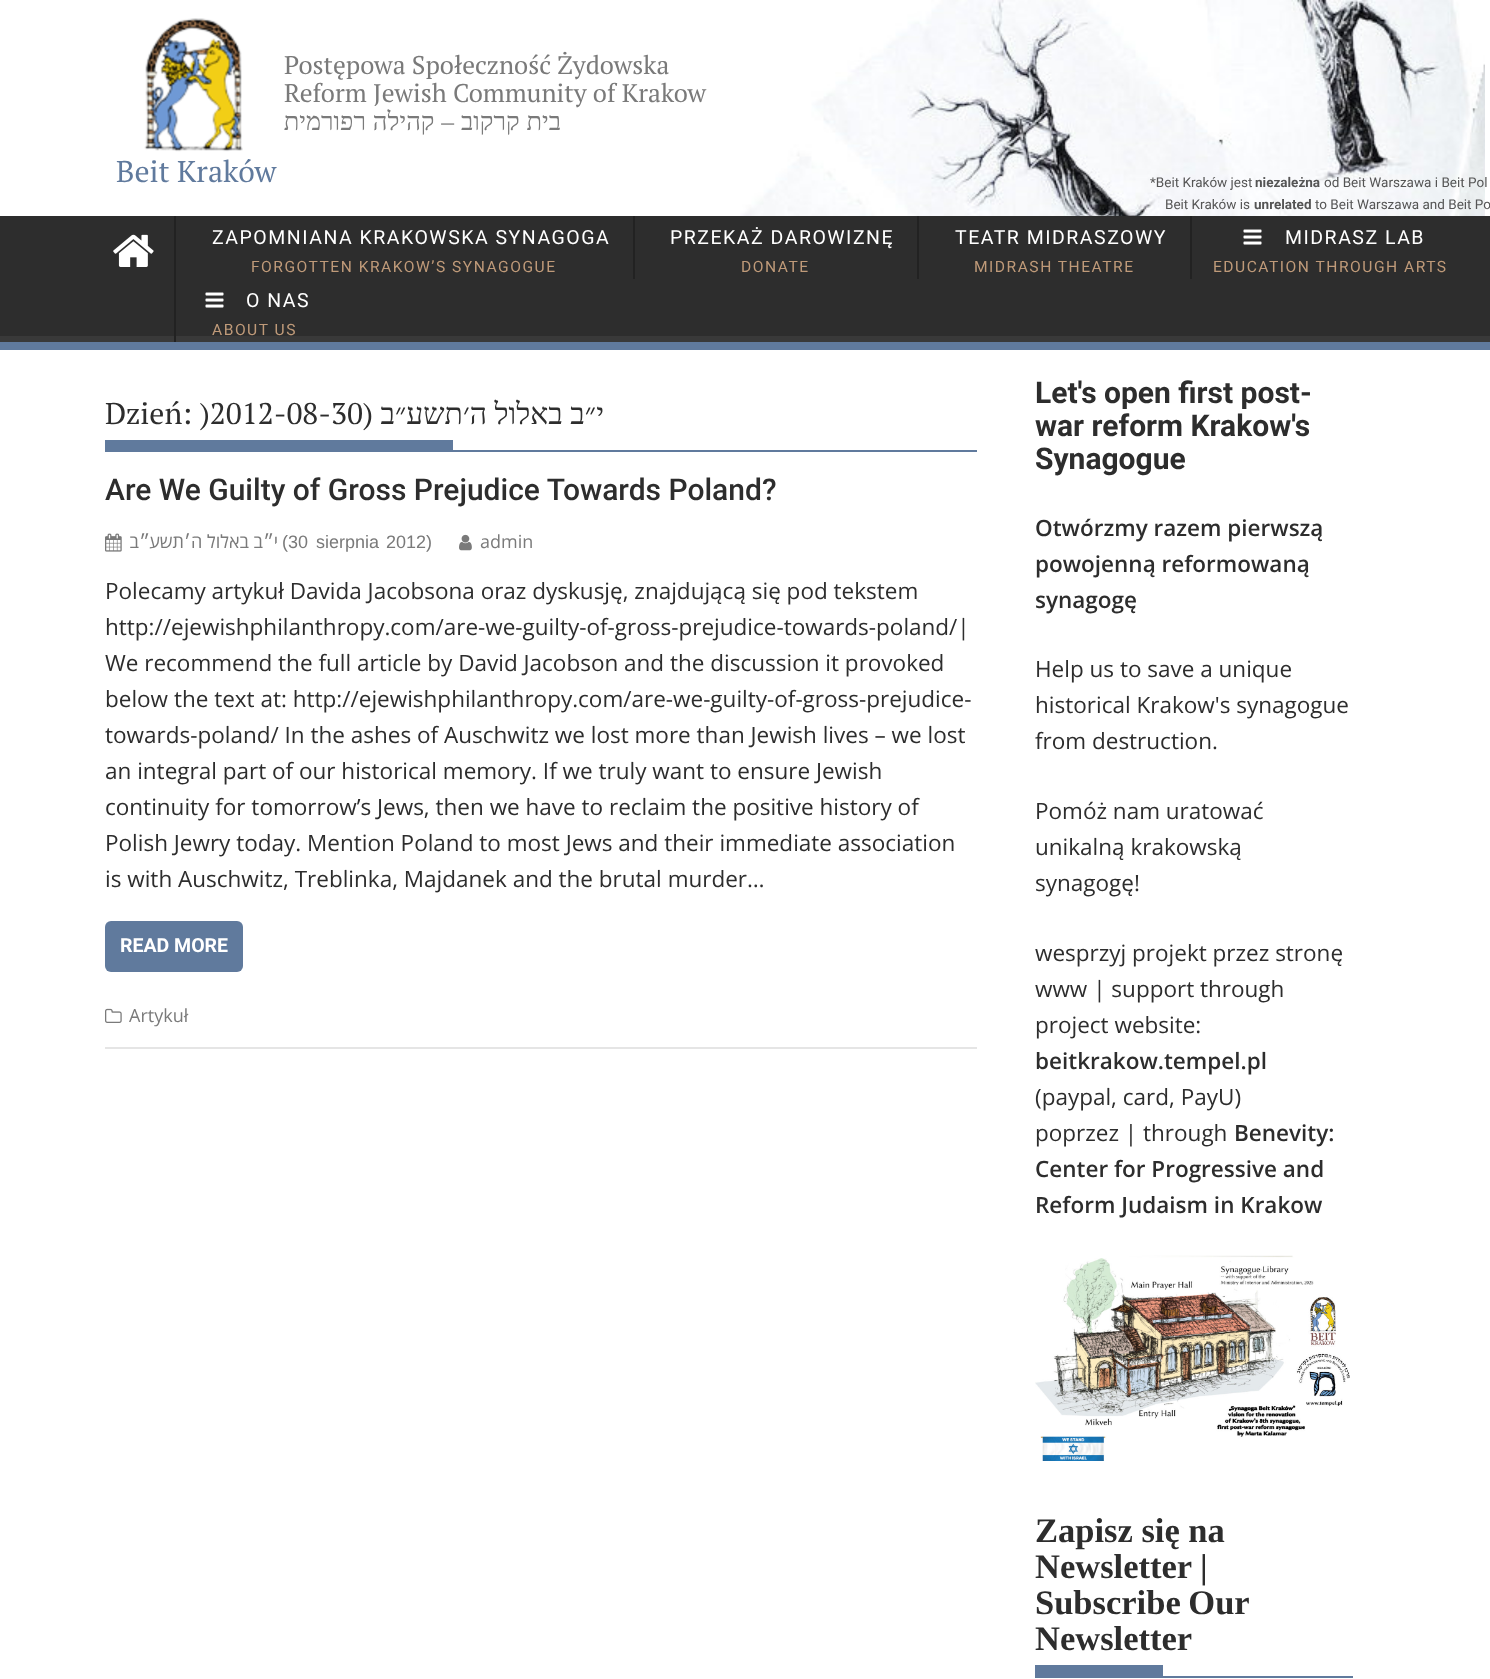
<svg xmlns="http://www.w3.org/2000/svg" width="1490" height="1679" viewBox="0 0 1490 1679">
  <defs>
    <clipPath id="clip1"><rect x="0" y="216" width="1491" height="126"/></clipPath>
  </defs>
  <rect width="100%" height="100%" fill="rgb(255,255,255)"/>
  <image x="740" y="0" width="745" height="216" href="pic1.png"/>
  <image x="144" y="18" width="99" height="134" href="pic2.png"/>
  <g font-family="PT Serif" font-size="25.5" fill="rgb(122,122,122)">
    <text>
      <tspan x="284" y="74">Postępowa Społeczność Żydowska</tspan>
      <tspan x="284" y="102">Reform Jewish Community of Krakow</tspan>
    </text>
  </g>
  <text x="561" y="130" word-spacing="0.5" font-family="Liberation Serif" font-size="25.5" direction="rtl" fill="rgb(122,122,122)">בית קרקוב – קהילה רפורמית</text>
  <text x="116" y="182" font-family="PT Serif" font-size="30" fill="rgb(96,122,157)">Beit Kraków</text>
  <text x="1150" y="187" font-family="Roboto" font-size="13.5" fill="rgb(85,85,85)">*Beit Kraków jest</text>
  <text x="1255" y="187" font-family="Roboto" font-size="13.5" font-weight="bold" fill="rgb(85,85,85)">niezależna</text>
  <g font-family="Roboto" font-size="13.5" fill="rgb(85,85,85)">
    <text x="1324" y="187">od Beit Warszawa i Beit Pol</text>
    <text x="1165" y="209">Beit Kraków is</text>
  </g>
  <text x="1254" y="209" font-family="Roboto" font-size="13.5" font-weight="bold" fill="rgb(85,85,85)">unrelated</text>
  <text x="1315" y="209" font-family="Roboto" font-size="13.5" fill="rgb(85,85,85)">to Beit Warszawa and Beit Po</text>
  <rect x="0" y="216" width="1490" height="120" fill="rgb(45,45,45)"/>
  <g clip-path="url(#clip1)">
    <path d="M-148 68H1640V490H-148ZM-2 207H1490C1490 207 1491 208 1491 208V334C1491 335 1490 336 1490 336H-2C-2 336-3 335-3 334V208C-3 208-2 207-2 207Z" fill="rgb(57,57,57)" fill-rule="evenodd"/>
  </g>
  <rect x="0" y="342" width="1490" height="8" fill="rgb(96,122,157)"/>
  <image x="113" y="234" width="41" height="33" href="pic3.png"/>
  <rect x="174" y="216" width="2" height="126" fill="rgb(34,34,34)"/>
  <text x="212" y="244" font-family="Roboto" font-size="19.5" letter-spacing="1.5" fill="rgb(255,255,255)">ZAPOMNIANA KRAKOWSKA SYNAGOGA</text>
  <text x="251" y="272" font-family="Roboto" font-size="15.6" letter-spacing="1.5" fill="rgb(191,154,121)">FORGOTTEN KRAKOW’S SYNAGOGUE</text>
  <rect x="633" y="216" width="2" height="63" fill="rgb(34,34,34)"/>
  <text x="670" y="244" font-family="Roboto" font-size="19.5" letter-spacing="1.5" fill="rgb(255,255,255)">PRZEKAŻ DAROWIZNĘ</text>
  <text x="741" y="272" font-family="Roboto" font-size="15.6" letter-spacing="1.5" fill="rgb(191,154,121)">DONATE</text>
  <rect x="917" y="216" width="2" height="63" fill="rgb(34,34,34)"/>
  <text x="955" y="244" font-family="Roboto" font-size="19.5" letter-spacing="1.5" fill="rgb(255,255,255)">TEATR MIDRASZOWY</text>
  <text x="974" y="272" font-family="Roboto" font-size="15.6" letter-spacing="1.5" fill="rgb(191,154,121)">MIDRASH THEATRE</text>
  <rect x="1190" y="216" width="2" height="63" fill="rgb(34,34,34)"/>
  <image x="1243" y="229" width="19" height="16" href="pic4.png"/>
  <text x="1285" y="244" font-family="Roboto" font-size="19.5" letter-spacing="1.5" fill="rgb(255,255,255)">MIDRASZ LAB</text>
  <text x="1213" y="272" font-family="Roboto" font-size="15.6" letter-spacing="1.5" fill="rgb(191,154,121)">EDUCATION THROUGH ARTS</text>
  <image x="205" y="292" width="19" height="16" href="pic4.png"/>
  <text x="246" y="307" font-family="Roboto" font-size="19.5" letter-spacing="1.5" fill="rgb(255,255,255)">O NAS</text>
  <text x="212" y="335" font-family="Roboto" font-size="15.6" letter-spacing="1.5" fill="rgb(191,154,121)">ABOUT US</text>
  <rect x="105" y="450" width="872" height="2" fill="rgb(96,122,157)"/>
  <text x="105" y="424" font-family="PT Serif" font-size="30" fill="rgb(45,45,45)">Dzień: )2012-08-30</text>
  <text x="373" y="424" font-family="PT Serif" font-size="30" direction="rtl" fill="rgb(45,45,45)">(</text>
  <text x="604" y="424" font-family="Liberation Serif" font-size="30" direction="rtl" fill="rgb(45,45,45)">י״ב באלול ה׳תשע״ב</text>
  <rect x="105" y="440" width="348" height="10" fill="rgb(96,122,157)"/>
  <rect x="105" y="1047" width="872" height="2" fill="rgb(229,229,229)"/>
  <text x="105" y="500" font-family="Roboto" font-size="30" font-weight="500" fill="rgb(45,45,45)">Are We Guilty of Gross Prejudice Towards Poland?</text>
  <image x="105" y="533" width="17" height="19" href="pic5.png"/>
  <text x="139" y="548" font-family="Open Sans" font-size="18" direction="rtl" fill="rgb(122,122,122)">ב</text>
  <text x="150" y="548" font-family="Liberation Sans" font-size="18" direction="rtl" fill="rgb(122,122,122)">״</text>
  <text x="184" y="548" font-family="Open Sans" font-size="18" direction="rtl" fill="rgb(122,122,122)">תשע</text>
  <text x="191" y="548" font-family="Liberation Sans" font-size="18" direction="rtl" fill="rgb(122,122,122)">׳</text>
  <text x="263" y="548" font-family="Open Sans" font-size="18" direction="rtl" fill="rgb(122,122,122)">ב באלול ה</text>
  <text x="274" y="548" font-family="Liberation Sans" font-size="18" direction="rtl" fill="rgb(122,122,122)">״</text>
  <text x="278" y="548" font-family="Open Sans" font-size="18" direction="rtl" fill="rgb(122,122,122)">י</text>
  <g font-family="Liberation Sans" font-size="18" fill="rgb(122,122,122)">
    <text x="282" y="548">(30</text>
    <text x="316" y="548" word-spacing="2">sierpnia 2012)</text>
  </g>
  <image x="459" y="534" width="13" height="17" href="pic6.png"/>
  <text x="480" y="548" font-family="Open Sans" font-size="18" fill="rgb(122,122,122)">admin</text>
  <g font-family="Open Sans" font-size="22.5" fill="rgb(45,45,45)">
    <text>
      <tspan x="105" y="599">Polecamy artykuł Davida Jacobsona oraz dyskusję, znajdującą się pod tekstem</tspan>
      <tspan x="105" y="635">http://ejewishphilanthropy.com/are-we-guilty-of-gross-prejudice-towards-poland/|</tspan>
      <tspan x="105" y="671">We recommend the full article by David Jacobson and the discussion it provoked</tspan>
      <tspan x="105" y="707">below the text at: http://ejewishphilanthropy.com/are-we-guilty-of-gross-prejudice-</tspan>
      <tspan x="105" y="743">towards-poland/ In the ashes of Auschwitz we lost more than Jewish lives – we lost</tspan>
      <tspan x="105" y="779">an integral part of our historical memory. If we truly want to ensure Jewish</tspan>
      <tspan x="105" y="815">continuity for tomorrow’s Jews, then we have to reclaim the positive history of</tspan>
      <tspan x="105" y="851">Polish Jewry today. Mention Poland to most Jews and their immediate association</tspan>
      <tspan x="105" y="887">is with Auschwitz, Treblinka, Majdanek and the brutal murder…</tspan>
    </text>
  </g>
  <rect x="105" y="921" width="138" height="51" rx="6" fill="rgb(96,122,157)"/>
  <text x="120" y="952" font-family="Roboto" font-size="19.5" font-weight="bold" fill="rgb(255,255,255)">READ MORE</text>
  <image x="105" y="1008" width="17" height="15" href="pic7.png"/>
  <text x="129" y="1022" font-family="Open Sans" font-size="18" fill="rgb(122,122,122)">Artykuł</text>
  <g font-family="Roboto" font-size="30" font-weight="bold" fill="rgb(45,45,45)">
    <text>
      <tspan x="1035" y="403">Let's open first post-</tspan>
      <tspan x="1035" y="436">war reform Krakow's</tspan>
      <tspan x="1035" y="469">Synagogue</tspan>
    </text>
  </g>
  <g font-family="Open Sans" font-size="22.5" font-weight="600" fill="rgb(45,45,45)">
    <text>
      <tspan x="1035" y="536">Otwórzmy razem pierwszą</tspan>
      <tspan x="1035" y="572">powojenną reformowaną</tspan>
      <tspan x="1035" y="608">synagogę</tspan>
    </text>
  </g>
  <g font-family="Open Sans" font-size="22.5" fill="rgb(45,45,45)">
    <text>
      <tspan x="1035" y="677">Help us to save a unique</tspan>
      <tspan x="1035" y="713">historical Krakow's synagogue</tspan>
      <tspan x="1035" y="749">from destruction.</tspan>
    </text>
    <text>
      <tspan x="1035" y="819">Pomóż nam uratować</tspan>
      <tspan x="1035" y="855">unikalną krakowską</tspan>
      <tspan x="1035" y="891">synagogę!</tspan>
    </text>
    <text>
      <tspan x="1035" y="961">wesprzyj projekt przez stronę</tspan>
      <tspan x="1035" y="997">www | support through</tspan>
      <tspan x="1035" y="1033">project website:</tspan>
    </text>
  </g>
  <text x="1035" y="1069" font-family="Open Sans" font-size="22.5" font-weight="600" fill="rgb(45,45,45)">beitkrakow.tempel.pl</text>
  <g font-family="Open Sans" font-size="22.5" fill="rgb(45,45,45)">
    <text>
      <tspan x="1035" y="1105">(paypal, card, PayU)</tspan>
      <tspan x="1035" y="1141">poprzez | through</tspan>
    </text>
  </g>
  <g font-family="Open Sans" font-size="22.5" font-weight="600" fill="rgb(45,45,45)">
    <text x="1234" y="1141">Benevity:</text>
    <text>
      <tspan x="1035" y="1177">Center for Progressive and</tspan>
      <tspan x="1035" y="1213">Reform Judaism in Krakow</tspan>
    </text>
  </g>
  <image x="1035" y="1255" width="315" height="206" href="pic8.png"/>
  <rect x="1035" y="1676" width="318" height="2" fill="rgb(96,122,157)"/>
  <g font-family="Liberation Serif" font-size="34.5" font-weight="bold" fill="rgb(45,45,45)">
    <text>
      <tspan x="1035" y="1542">Zapisz się na</tspan>
      <tspan x="1035" y="1578">Newsletter |</tspan>
      <tspan x="1035" y="1614" word-spacing="-1">Subscribe Our</tspan>
      <tspan x="1035" y="1650">Newsletter</tspan>
    </text>
  </g>
  <rect x="1035" y="1665" width="128" height="11" fill="rgb(96,122,157)"/>
</svg>
